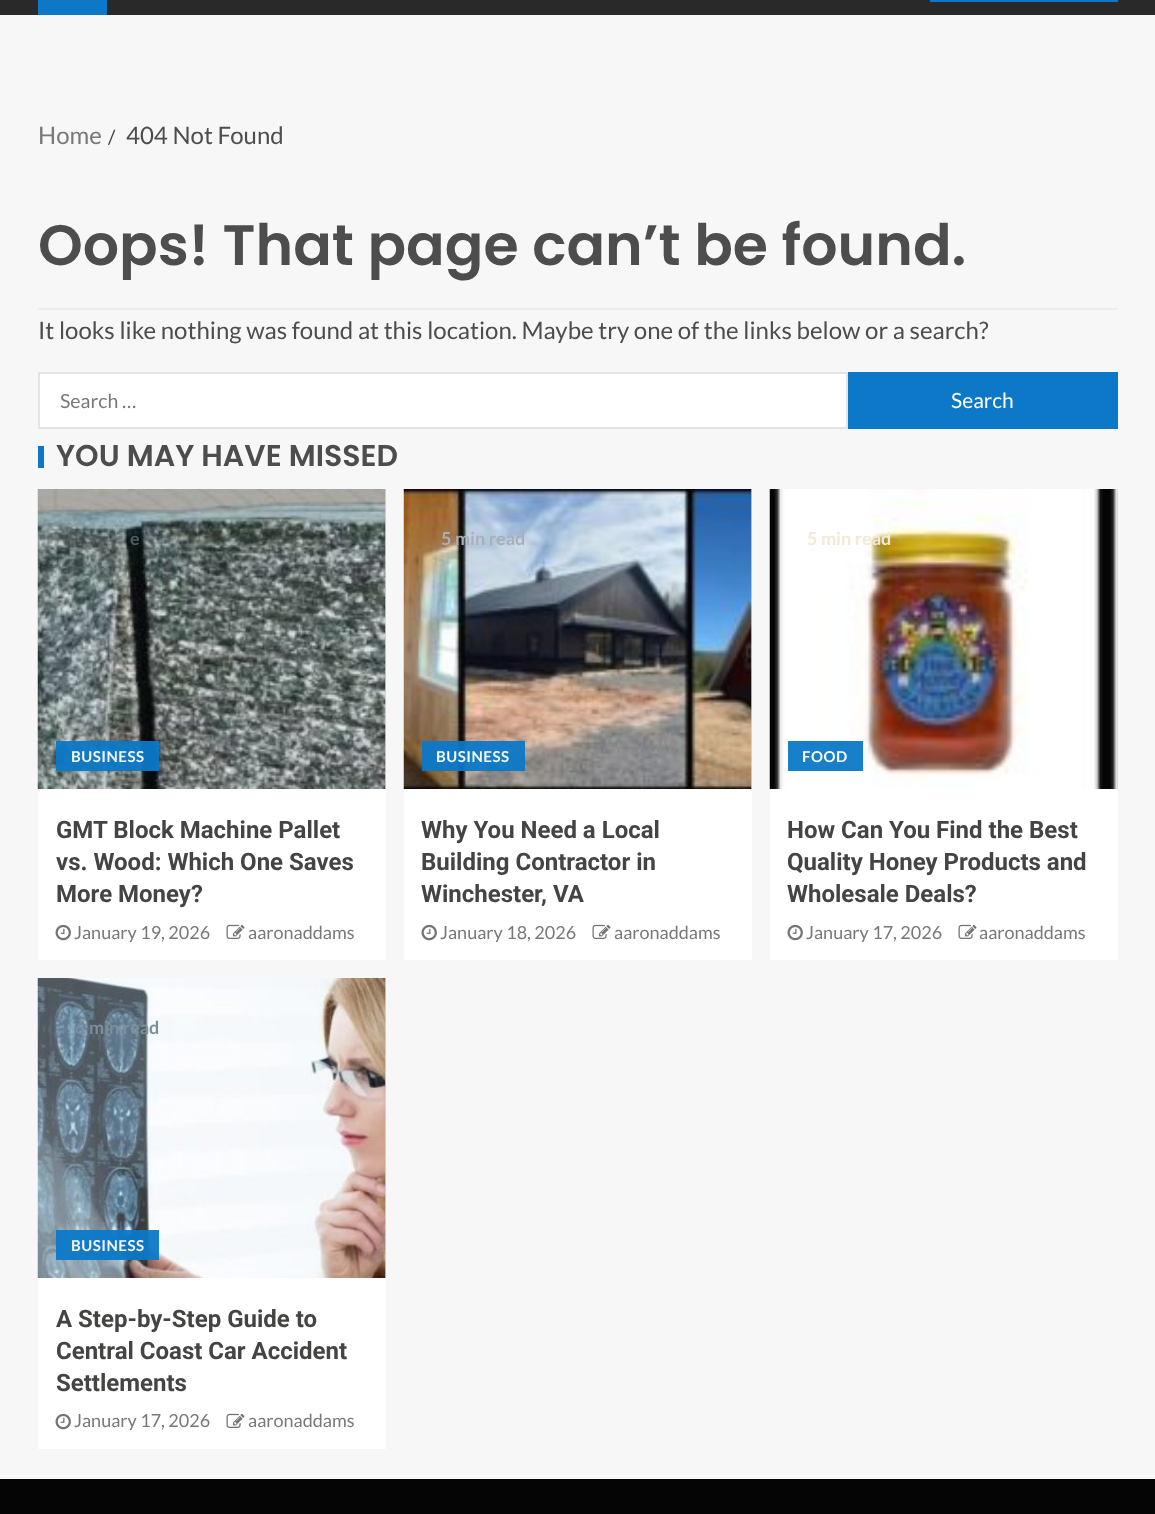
<svg xmlns="http://www.w3.org/2000/svg" width="1155" height="1514" viewBox="0 0 1155 1514">
  <rect width="100%" height="100%" fill="rgb(247,247,247)"/>
  <rect x="0" y="0" width="1155" height="15" fill="rgb(41,41,41)"/>
  <rect x="38" y="0" width="69" height="15" fill="rgb(12,120,199)"/>
  <rect x="930" y="0" width="188" height="2" fill="rgb(12,120,199)"/>
  <text x="38" y="144" font-family="Lato" font-size="24" fill="rgb(120,120,119)">Home</text>
  <text x="108" y="144" font-family="Lato" font-size="19.5" fill="rgb(61,66,73)">/</text>
  <text x="126" y="144" font-family="Lato" font-size="24" fill="rgb(77,77,77)">404 Not Found</text>
  <rect x="38" y="308" width="1080" height="2" fill="rgb(238,238,238)"/>
  <text x="38" y="265" font-family="Poppins" font-size="57" font-weight="600" fill="rgb(77,77,77)">Oops! That page can’t be found.</text>
  <text x="38" y="339" font-family="Lato" font-size="24" fill="rgb(77,77,77)">It looks like nothing was found at this location. Maybe try one of the links below or a search?</text>
  <rect x="39" y="373" width="808" height="55" fill="rgb(255,255,255)" stroke="rgb(228,228,228)" stroke-width="2"/>
  <text x="60" y="408" font-family="Lato" font-size="19.5" fill="rgb(120,120,119)">Search …</text>
  <rect x="848" y="372" width="270" height="57" fill="rgb(12,120,199)"/>
  <text x="951" y="408" font-family="Lato" font-size="21" fill="rgb(255,255,255)">Search</text>
  <rect x="38" y="446" width="6" height="22" fill="rgb(12,120,199)"/>
  <text x="56" y="466" font-family="Poppins" font-size="30" font-weight="600" fill="rgb(77,77,77)">YOU MAY HAVE MISSED</text>
  <rect x="385" y="489" width="1" height="300" fill="rgb(219,218,218)"/>
  <image x="37" y="489" width="349" height="300" href="pic1.png"/>
  <text x="130" y="545" font-family="Lato" font-size="18" font-weight="bold" fill="rgb(80,91,91)">e</text>
  <rect x="56" y="741" width="103" height="30" fill="rgba(12,120,199,0.95)"/>
  <text x="71" y="762" font-family="Lato" font-size="15" font-weight="bold" letter-spacing="0.5" fill="rgb(243,248,252)">BUSINESS</text>
  <rect x="38" y="789" width="348" height="171" fill="rgb(255,255,255)"/>
  <g font-family="Roboto" font-size="24" font-weight="bold" fill="rgb(68,68,67)">
    <text>
      <tspan x="56" y="838">GMT Block Machine Pallet</tspan>
      <tspan x="56" y="870">vs. Wood: Which One Saves</tspan>
      <tspan x="56" y="902">More Money?</tspan>
    </text>
  </g>
  <image x="55" y="924" width="16" height="17" href="pic2.png"/>
  <text x="74" y="939" font-family="Lato" font-size="18" fill="rgb(120,120,119)">January 19, 2026</text>
  <image x="226" y="924" width="19" height="15" href="pic3.png"/>
  <text x="248" y="939" font-family="Lato" font-size="18" fill="rgb(120,120,119)">aaronaddams</text>
  <rect x="751" y="489" width="1" height="300" fill="rgb(219,218,218)"/>
  <image x="403" y="489" width="349" height="300" href="pic4.png"/>
  <text x="441" y="545" font-family="Lato" font-size="18" font-weight="bold" fill="rgb(168,175,185)">5 min read</text>
  <rect x="422" y="741" width="103" height="30" fill="rgba(12,120,199,0.95)"/>
  <text x="436" y="762" font-family="Lato" font-size="15" font-weight="bold" letter-spacing="0.5" fill="rgb(243,248,252)">BUSINESS</text>
  <rect x="404" y="789" width="348" height="171" fill="rgb(255,255,255)"/>
  <g font-family="Roboto" font-size="24" font-weight="bold" fill="rgb(68,68,67)">
    <text>
      <tspan x="421" y="838">Why You Need a Local</tspan>
      <tspan x="421" y="870">Building Contractor in</tspan>
      <tspan x="421" y="902">Winchester, VA</tspan>
    </text>
  </g>
  <image x="421" y="924" width="16" height="17" href="pic2.png"/>
  <text x="440" y="939" font-family="Lato" font-size="18" fill="rgb(120,120,119)">January 18, 2026</text>
  <image x="592" y="924" width="19" height="15" href="pic3.png"/>
  <text x="614" y="939" font-family="Lato" font-size="18" fill="rgb(120,120,119)">aaronaddams</text>
  <rect x="1117" y="489" width="1" height="300" fill="rgb(219,218,218)"/>
  <image x="769" y="489" width="348" height="300" href="pic5.png"/>
  <text x="807" y="545" font-family="Lato" font-size="18" font-weight="bold" fill="rgb(240,234,214)">5 min read</text>
  <rect x="788" y="741" width="75" height="30" fill="rgba(12,120,199,0.95)"/>
  <text x="802" y="762" font-family="Lato" font-size="15" font-weight="bold" letter-spacing="0.5" fill="rgb(255,255,255)">FOOD</text>
  <rect x="770" y="789" width="348" height="171" fill="rgb(255,255,255)"/>
  <g font-family="Roboto" font-size="24" font-weight="bold" fill="rgb(68,68,67)">
    <text>
      <tspan x="787" y="838">How Can You Find the Best</tspan>
      <tspan x="787" y="870">Quality Honey Products and</tspan>
      <tspan x="787" y="902">Wholesale Deals?</tspan>
    </text>
  </g>
  <image x="787" y="924" width="16" height="17" href="pic2.png"/>
  <text x="806" y="939" font-family="Lato" font-size="18" fill="rgb(120,120,119)">January 17, 2026</text>
  <image x="958" y="924" width="19" height="15" href="pic3.png"/>
  <text x="979" y="939" font-family="Lato" font-size="18" fill="rgb(120,120,119)">aaronaddams</text>
  <rect x="385" y="978" width="1" height="300" fill="rgb(219,218,218)"/>
  <image x="37" y="978" width="349" height="300" href="pic6.png"/>
  <text x="75" y="1034" font-family="Lato" font-size="18" font-weight="bold" fill="rgb(125,143,157)">6 min read</text>
  <rect x="56" y="1230" width="103" height="30" fill="rgba(12,120,199,0.95)"/>
  <text x="71" y="1251" font-family="Lato" font-size="15" font-weight="bold" letter-spacing="0.5" fill="rgb(243,248,252)">BUSINESS</text>
  <rect x="38" y="1278" width="348" height="171" fill="rgb(255,255,255)"/>
  <g font-family="Roboto" font-size="24" font-weight="bold" fill="rgb(68,68,67)">
    <text>
      <tspan x="56" y="1327">A Step-by-Step Guide to</tspan>
      <tspan x="56" y="1359">Central Coast Car Accident</tspan>
      <tspan x="56" y="1391">Settlements</tspan>
    </text>
  </g>
  <image x="55" y="1413" width="16" height="17" href="pic2.png"/>
  <text x="74" y="1427" font-family="Lato" font-size="18" fill="rgb(120,120,119)">January 17, 2026</text>
  <image x="226" y="1413" width="19" height="15" href="pic3.png"/>
  <text x="248" y="1427" font-family="Lato" font-size="18" fill="rgb(120,120,119)">aaronaddams</text>
  <rect x="0" y="1479" width="1155" height="35" fill="rgb(5,5,5)"/>
</svg>
